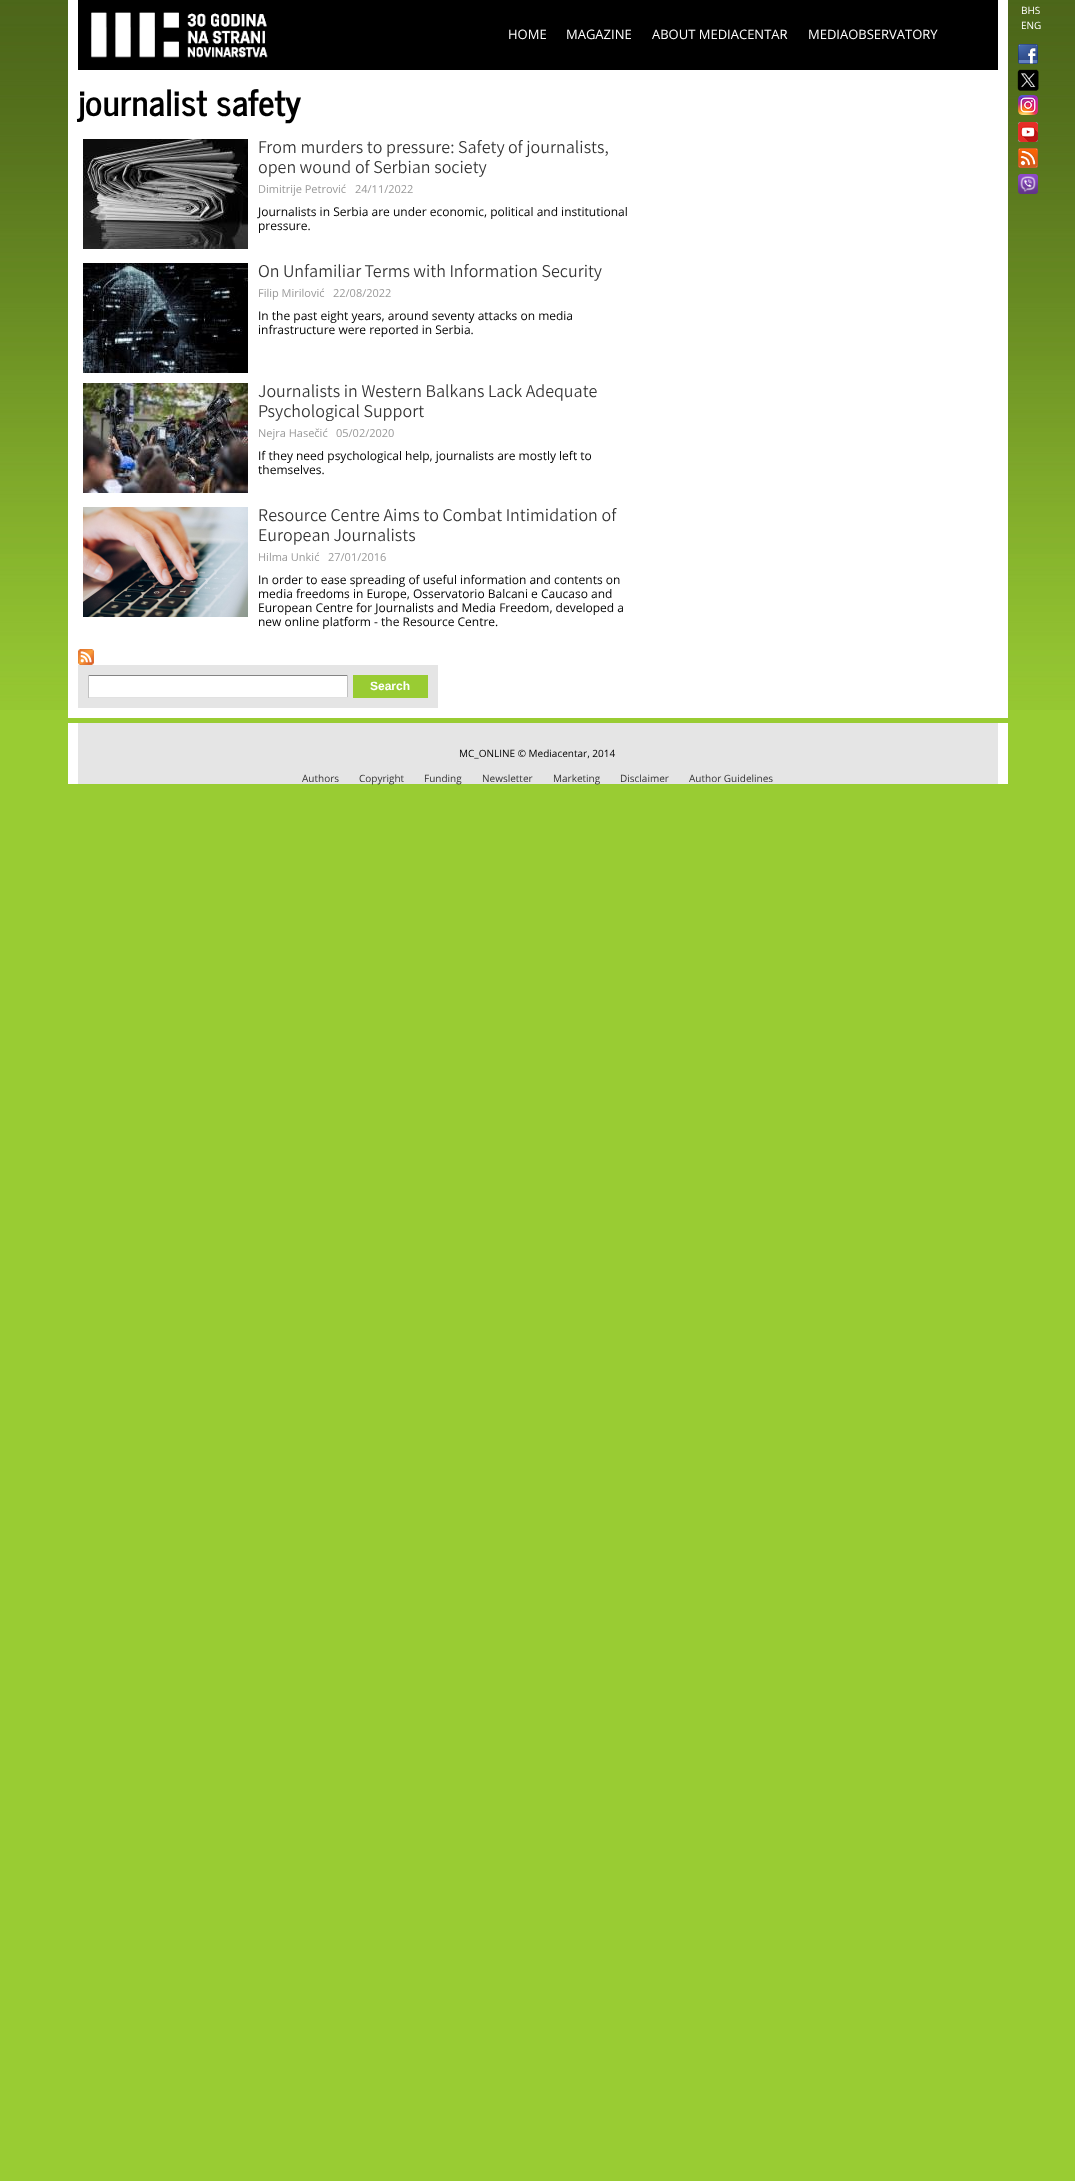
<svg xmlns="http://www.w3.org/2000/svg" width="1075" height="2181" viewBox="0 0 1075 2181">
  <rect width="100%" height="100%" fill="rgb(153,204,51)"/>
  <image x="0" y="0" width="1075" height="710" href="pic1.png"/>
  <rect x="68" y="0" width="940" height="718" fill="rgb(255,255,255)"/>
  <rect x="78" y="0" width="920" height="70" fill="rgb(0,0,0)"/>
  <image x="91" y="12" width="177" height="46" href="pic2.png"/>
  <g font-family="Open Sans" font-size="13" fill="rgb(255,255,255)">
    <text x="508" y="39">HOME</text>
    <text x="566" y="39">MAGAZINE</text>
    <text x="652" y="39">ABOUT MEDIACENTAR</text>
    <text x="808" y="39">MEDIAOBSERVATORY</text>
  </g>
  <g font-family="Open Sans" font-size="10" fill="rgb(255,255,255)">
    <text>
      <tspan x="1021" y="14">BHS</tspan>
      <tspan x="1021" y="29">ENG</tspan>
    </text>
  </g>
  <image x="1018" y="44" width="20" height="20" href="pic3.png"/>
  <image x="1017" y="69" width="22" height="22" href="pic4.png"/>
  <image x="1018" y="95" width="20" height="20" href="pic5.png"/>
  <image x="1018" y="122" width="20" height="20" href="pic6.png"/>
  <image x="1018" y="148" width="20" height="20" href="pic7.png"/>
  <image x="1018" y="174" width="20" height="20" href="pic8.png"/>
  <text x="78" y="116" font-family="News Cycle" font-size="36" font-weight="bold" fill="rgb(0,0,0)">journalist safety</text>
  <image x="83" y="139" width="165" height="110" href="pic9.png"/>
  <g font-family="Varta" font-size="18" font-weight="300" fill="rgb(51,51,51)">
    <text>
      <tspan x="258" y="153">From murders to pressure: Safety of journalists,</tspan>
      <tspan x="258" y="173">open wound of Serbian society</tspan>
    </text>
  </g>
  <g font-family="Open Sans" font-size="11" fill="rgb(153,153,153)">
    <text x="258" y="193">Dimitrije Petrović</text>
    <text x="355" y="193">24/11/2022</text>
  </g>
  <g font-family="Open Sans" font-size="12" fill="rgb(0,0,0)">
    <text>
      <tspan x="258" y="216">Journalists in Serbia are under economic, political and institutional</tspan>
      <tspan x="258" y="230">pressure.</tspan>
    </text>
  </g>
  <image x="83" y="263" width="165" height="110" href="pic10.png"/>
  <text x="258" y="277" font-family="Varta" font-size="18" font-weight="300" fill="rgb(51,51,51)">On Unfamiliar Terms with Information Security</text>
  <g font-family="Open Sans" font-size="11" fill="rgb(153,153,153)">
    <text x="258" y="297">Filip Mirilović</text>
    <text x="333" y="297">22/08/2022</text>
  </g>
  <g font-family="Open Sans" font-size="12" fill="rgb(0,0,0)">
    <text>
      <tspan x="258" y="320">In the past eight years, around seventy attacks on media</tspan>
      <tspan x="258" y="334">infrastructure were reported in Serbia.</tspan>
    </text>
  </g>
  <image x="83" y="383" width="165" height="110" href="pic11.png"/>
  <g font-family="Varta" font-size="18" font-weight="300" fill="rgb(51,51,51)">
    <text>
      <tspan x="258" y="397">Journalists in Western Balkans Lack Adequate</tspan>
      <tspan x="258" y="417">Psychological Support</tspan>
    </text>
  </g>
  <g font-family="Open Sans" font-size="11" fill="rgb(153,153,153)">
    <text x="258" y="437">Nejra Hasečić</text>
    <text x="336" y="437">05/02/2020</text>
  </g>
  <g font-family="Open Sans" font-size="12" fill="rgb(0,0,0)">
    <text>
      <tspan x="258" y="460">If they need psychological help, journalists are mostly left to</tspan>
      <tspan x="258" y="474">themselves.</tspan>
    </text>
  </g>
  <image x="83" y="507" width="165" height="110" href="pic12.png"/>
  <g font-family="Varta" font-size="18" font-weight="300" fill="rgb(51,51,51)">
    <text>
      <tspan x="258" y="521">Resource Centre Aims to Combat Intimidation of</tspan>
      <tspan x="258" y="541">European Journalists</tspan>
    </text>
  </g>
  <g font-family="Open Sans" font-size="11" fill="rgb(153,153,153)">
    <text x="258" y="561">Hilma Unkić</text>
    <text x="328" y="561">27/01/2016</text>
  </g>
  <g font-family="Open Sans" font-size="12" fill="rgb(0,0,0)">
    <text>
      <tspan x="258" y="584">In order to ease spreading of useful information and contents on</tspan>
      <tspan x="258" y="598">media freedoms in Europe, Osservatorio Balcani e Caucaso and</tspan>
      <tspan x="258" y="612">European Centre for Journalists and Media Freedom, developed a</tspan>
      <tspan x="258" y="626">new online platform - the Resource Centre.</tspan>
    </text>
  </g>
  <image x="78" y="649" width="16" height="16" href="pic13.png"/>
  <rect x="83" y="670" width="350" height="33" fill="none" stroke="rgb(229,229,229)" stroke-width="10"/>
  <rect x="348" y="675" width="5" height="23" fill="rgb(229,229,229)"/>
  <rect x="88" y="675" width="260" height="1" fill="rgb(132,132,132)"/>
  <rect x="347" y="675" width="1" height="23" fill="rgb(193,193,193)"/>
  <rect x="88" y="697" width="260" height="1" fill="rgb(225,225,225)"/>
  <rect x="88" y="675" width="1" height="23" fill="rgb(193,193,193)"/>
  <rect x="353" y="675" width="75" height="23" fill="rgb(153,204,51)"/>
  <text x="370" y="690" font-family="Liberation Sans" font-size="12" font-weight="bold" fill="rgb(255,255,255)">Search</text>
  <rect x="68" y="723" width="940" height="61" fill="rgb(255,255,255)"/>
  <rect x="78" y="723" width="920" height="61" fill="rgb(229,229,229)"/>
  <text x="459" y="757" font-family="Open Sans" font-size="10" fill="rgb(0,0,0)">MC_ONLINE © Mediacentar, 2014</text>
  <g font-family="Open Sans" font-size="10" fill="rgb(51,51,51)">
    <text x="302" y="782">Authors</text>
    <text x="359" y="782">Copyright</text>
    <text x="424" y="782">Funding</text>
    <text x="482" y="782">Newsletter</text>
    <text x="553" y="782">Marketing</text>
    <text x="620" y="782">Disclaimer</text>
    <text x="689" y="782">Author Guidelines</text>
  </g>
</svg>
